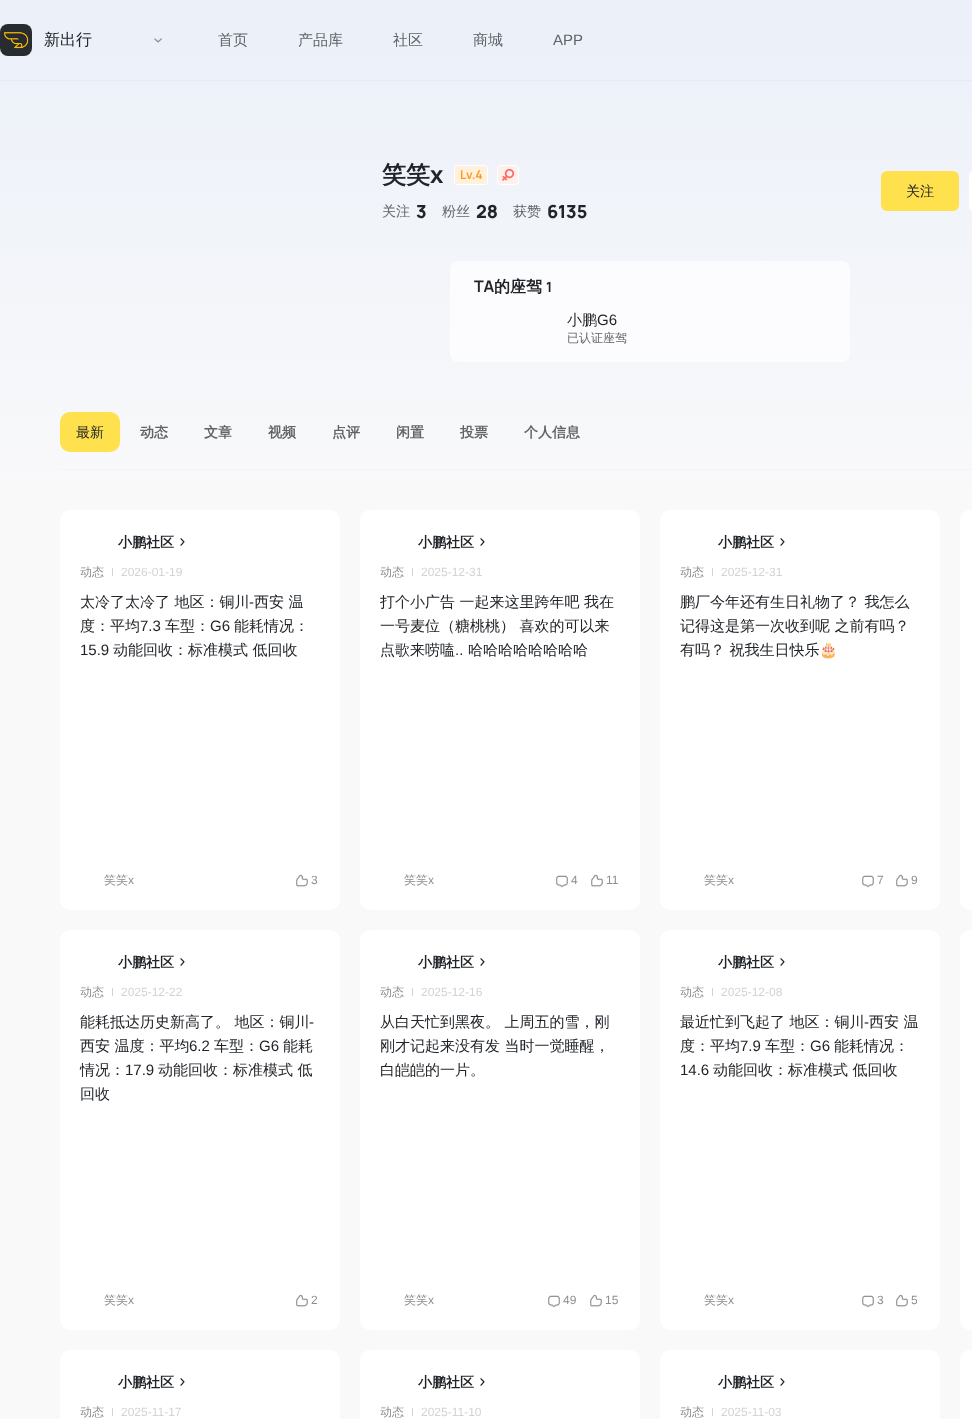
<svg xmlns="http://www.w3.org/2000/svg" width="972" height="1419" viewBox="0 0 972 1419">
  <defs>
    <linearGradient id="g1" gradientUnits="userSpaceOnUse" x1="650" y1="0" x2="650" y2="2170"><stop offset="0" stop-color="rgb(235,240,249)"/><stop offset="0.23" stop-color="rgb(249,249,250)"/></linearGradient>
  </defs>
  <rect width="100%" height="100%" fill="rgb(255,255,255)"/>
  <rect x="0" y="0" width="972" height="1419" fill="url(#g1)"/>
  <rect x="0" y="80" width="972" height="1" fill="rgb(230,234,242)"/>
  <image x="0" y="24" width="32" height="32" href="pic1.png"/>
  <text x="44" y="45" font-family="WenQuanYi Zen Hei" font-size="16" font-weight="500" fill="rgb(33,36,41)">新出行</text>
  <image x="154" y="38" width="8" height="5" href="pic2.png"/>
  <rect x="192" y="35" width="1" height="10" fill="rgb(240,240,240)"/>
  <g font-family="WenQuanYi Zen Hei" font-size="15" font-weight="500" fill="rgb(97,99,103)">
    <text x="218" y="45">首页</text>
    <text x="298" y="45">产品库</text>
    <text x="393" y="45">社区</text>
    <text x="473" y="45">商城</text>
  </g>
  <text x="553" y="45" font-family="Liberation Sans" font-size="15" fill="rgb(97,99,103)">APP</text>
  <text x="382" y="183" font-family="WenQuanYi Zen Hei" font-size="24" font-weight="bold" fill="rgb(33,36,41)">笑笑</text>
  <text x="430" y="183" font-family="Liberation Sans" font-size="24" font-weight="bold" fill="rgb(33,36,41)">x</text>
  <rect x="454.5" y="165.5" width="33" height="19" rx="2.5" fill="rgb(255,241,219)" stroke="rgb(255,255,255)"/>
  <text x="460" y="179" font-family="Manrope" font-size="12" font-weight="bold" fill="rgb(255,154,31)">Lv.4</text>
  <image x="497" y="165" width="22" height="20" href="pic3.png"/>
  <text x="382" y="216" font-family="WenQuanYi Zen Hei" font-size="14" font-weight="500" fill="rgb(97,99,103)">关注</text>
  <text x="416" y="218" font-family="Manrope" font-size="18" font-weight="800" fill="rgb(33,36,41)">3</text>
  <text x="442" y="216" font-family="WenQuanYi Zen Hei" font-size="14" font-weight="500" fill="rgb(97,99,103)">粉丝</text>
  <text x="476" y="218" font-family="Manrope" font-size="18" font-weight="800" fill="rgb(33,36,41)">28</text>
  <text x="513" y="216" font-family="WenQuanYi Zen Hei" font-size="14" font-weight="500" fill="rgb(97,99,103)">获赞</text>
  <text x="547" y="218" font-family="Manrope" font-size="18" font-weight="800" fill="rgb(33,36,41)">6135</text>
  <rect x="881" y="171" width="78" height="40" rx="6" fill="rgb(255,225,77)"/>
  <text x="906" y="196" font-family="WenQuanYi Zen Hei" font-size="14" font-weight="500" fill="rgb(33,36,41)">关注</text>
  <rect x="969" y="171" width="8" height="40" rx="5" fill="rgb(255,255,255)"/>
  <rect x="450" y="261" width="400" height="101" rx="8" fill="rgba(255,255,255,0.7)"/>
  <text x="474" y="292" font-family="Manrope" font-size="16" font-weight="bold" fill="rgb(33,36,41)">TA</text>
  <text x="494" y="292" font-family="WenQuanYi Zen Hei" font-size="16" font-weight="bold" fill="rgb(33,36,41)">的座驾</text>
  <text x="546" y="292" font-family="Manrope" font-size="14" font-weight="bold" fill="rgb(33,36,41)">1</text>
  <text x="567" y="325" font-family="WenQuanYi Zen Hei" font-size="15" font-weight="500" fill="rgb(33,36,41)">小鹏</text>
  <text x="597" y="325" font-family="Liberation Sans" font-size="15" fill="rgb(33,36,41)">G6</text>
  <text x="567" y="342" font-family="WenQuanYi Zen Hei" font-size="12" font-weight="500" fill="rgb(97,99,103)">已认证座驾</text>
  <rect x="60" y="469" width="912" height="1" fill="rgb(243,243,243)"/>
  <rect x="60" y="412" width="60" height="40" rx="10" fill="rgb(255,225,77)"/>
  <text x="76" y="437" font-family="WenQuanYi Zen Hei" font-size="14" font-weight="500" fill="rgb(33,36,41)">最新</text>
  <g font-family="WenQuanYi Zen Hei" font-size="14" font-weight="bold" fill="rgb(97,99,103)">
    <text x="140" y="437">动态</text>
    <text x="204" y="437">文章</text>
    <text x="268" y="437">视频</text>
    <text x="332" y="437">点评</text>
    <text x="396" y="437">闲置</text>
    <text x="460" y="437">投票</text>
    <text x="524" y="437">个人信息</text>
  </g>
  <rect x="60" y="510" width="280" height="400" rx="10" fill="rgb(255,255,255)"/>
  <text x="118" y="547" font-family="WenQuanYi Zen Hei" font-size="14" font-weight="bold" fill="rgb(33,36,41)">小鹏社区</text>
  <image x="180" y="538" width="5" height="8" href="pic4.png"/>
  <text x="80" y="576" font-family="WenQuanYi Zen Hei" font-size="12" font-weight="500" fill="rgb(140,142,144)">动态</text>
  <rect x="112" y="568" width="1" height="8" fill="rgb(211,211,212)"/>
  <text x="121" y="576" font-family="Liberation Sans" font-size="12" fill="rgb(211,211,212)">2026-01-19</text>
  <text x="80" y="607" font-family="WenQuanYi Zen Hei" font-size="15" font-weight="500" fill="rgb(33,36,41)">太冷了太冷了 地区：铜川</text>
  <text x="249" y="607" font-family="Liberation Sans" font-size="15" fill="rgb(33,36,41)">-</text>
  <g font-family="WenQuanYi Zen Hei" font-size="15" font-weight="500" fill="rgb(33,36,41)">
    <text x="254" y="607">西安 温</text>
    <text x="80" y="631">度：平均</text>
  </g>
  <text x="140" y="631" font-family="Liberation Sans" font-size="15" fill="rgb(33,36,41)">7.3</text>
  <text x="165" y="631" font-family="WenQuanYi Zen Hei" font-size="15" font-weight="500" fill="rgb(33,36,41)">车型：</text>
  <text x="210" y="631" font-family="Liberation Sans" font-size="15" fill="rgb(33,36,41)">G6</text>
  <text x="234" y="631" font-family="WenQuanYi Zen Hei" font-size="15" font-weight="500" fill="rgb(33,36,41)">能耗情况：</text>
  <text x="80" y="655" font-family="Liberation Sans" font-size="15" fill="rgb(33,36,41)">15.9</text>
  <text x="113" y="655" font-family="WenQuanYi Zen Hei" font-size="15" font-weight="500" fill="rgb(33,36,41)">动能回收：标准模式 低回收</text>
  <text x="104" y="884" font-family="WenQuanYi Zen Hei" font-size="12" font-weight="500" fill="rgb(140,142,144)">笑笑</text>
  <text x="128" y="884" font-family="Liberation Sans" font-size="12" fill="rgb(140,142,144)">x</text>
  <image x="296" y="874" width="12" height="14" href="pic5.png"/>
  <text x="311" y="884" font-family="Liberation Sans" font-size="12" fill="rgb(140,142,144)">3</text>
  <rect x="360" y="510" width="280" height="400" rx="10" fill="rgb(255,255,255)"/>
  <text x="418" y="547" font-family="WenQuanYi Zen Hei" font-size="14" font-weight="bold" fill="rgb(33,36,41)">小鹏社区</text>
  <image x="480" y="538" width="5" height="8" href="pic4.png"/>
  <text x="380" y="576" font-family="WenQuanYi Zen Hei" font-size="12" font-weight="500" fill="rgb(140,142,144)">动态</text>
  <rect x="412" y="568" width="1" height="8" fill="rgb(211,211,212)"/>
  <text x="421" y="576" font-family="Liberation Sans" font-size="12" fill="rgb(211,211,212)">2025-12-31</text>
  <g font-family="WenQuanYi Zen Hei" font-size="15" font-weight="500" fill="rgb(33,36,41)">
    <text>
      <tspan x="380" y="607">打个小广告 一起来这里跨年吧 我在</tspan>
      <tspan x="380" y="631">一号麦位（糖桃桃） 喜欢的可以来</tspan>
      <tspan x="380" y="655">点歌来唠嗑</tspan>
    </text>
  </g>
  <text x="455" y="655" font-family="Liberation Sans" font-size="15" fill="rgb(33,36,41)">..</text>
  <text x="468" y="655" font-family="WenQuanYi Zen Hei" font-size="15" font-weight="500" fill="rgb(33,36,41)">哈哈哈哈哈哈哈哈</text>
  <text x="404" y="884" font-family="WenQuanYi Zen Hei" font-size="12" font-weight="500" fill="rgb(140,142,144)">笑笑</text>
  <text x="428" y="884" font-family="Liberation Sans" font-size="12" fill="rgb(140,142,144)">x</text>
  <image x="556" y="875" width="12" height="13" href="pic6.png"/>
  <text x="571" y="884" font-family="Liberation Sans" font-size="12" fill="rgb(140,142,144)">4</text>
  <image x="591" y="874" width="12" height="14" href="pic5.png"/>
  <text x="606" y="884" font-family="Liberation Sans" font-size="12" fill="rgb(140,142,144)">11</text>
  <rect x="660" y="510" width="280" height="400" rx="10" fill="rgb(255,255,255)"/>
  <text x="718" y="547" font-family="WenQuanYi Zen Hei" font-size="14" font-weight="bold" fill="rgb(33,36,41)">小鹏社区</text>
  <image x="780" y="538" width="5" height="8" href="pic4.png"/>
  <text x="680" y="576" font-family="WenQuanYi Zen Hei" font-size="12" font-weight="500" fill="rgb(140,142,144)">动态</text>
  <rect x="712" y="568" width="1" height="8" fill="rgb(211,211,212)"/>
  <text x="721" y="576" font-family="Liberation Sans" font-size="12" fill="rgb(211,211,212)">2025-12-31</text>
  <g font-family="WenQuanYi Zen Hei" font-size="15" font-weight="500" fill="rgb(33,36,41)">
    <text>
      <tspan x="680" y="607">鹏厂今年还有生日礼物了？ 我怎么</tspan>
      <tspan x="680" y="631">记得这是第一次收到呢 之前有吗？</tspan>
      <tspan x="680" y="655">有吗？ 祝我生日快乐</tspan>
    </text>
  </g>
  <text x="819" y="655" font-family="Noto Color Emoji" font-size="15" fill="rgb(33,36,41)">🎂</text>
  <text x="704" y="884" font-family="WenQuanYi Zen Hei" font-size="12" font-weight="500" fill="rgb(140,142,144)">笑笑</text>
  <text x="728" y="884" font-family="Liberation Sans" font-size="12" fill="rgb(140,142,144)">x</text>
  <image x="862" y="875" width="12" height="13" href="pic6.png"/>
  <text x="877" y="884" font-family="Liberation Sans" font-size="12" fill="rgb(140,142,144)">7</text>
  <image x="896" y="874" width="12" height="14" href="pic5.png"/>
  <text x="911" y="884" font-family="Liberation Sans" font-size="12" fill="rgb(140,142,144)">9</text>
  <rect x="960" y="510" width="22" height="400" rx="10" fill="rgb(255,255,255)"/>
  <rect x="60" y="930" width="280" height="400" rx="10" fill="rgb(255,255,255)"/>
  <text x="118" y="967" font-family="WenQuanYi Zen Hei" font-size="14" font-weight="bold" fill="rgb(33,36,41)">小鹏社区</text>
  <image x="180" y="958" width="5" height="8" href="pic4.png"/>
  <text x="80" y="996" font-family="WenQuanYi Zen Hei" font-size="12" font-weight="500" fill="rgb(140,142,144)">动态</text>
  <rect x="112" y="988" width="1" height="8" fill="rgb(211,211,212)"/>
  <text x="121" y="996" font-family="Liberation Sans" font-size="12" fill="rgb(211,211,212)">2025-12-22</text>
  <text x="80" y="1027" font-family="WenQuanYi Zen Hei" font-size="15" font-weight="500" fill="rgb(33,36,41)">能耗抵达历史新高了。 地区：铜川</text>
  <text x="309" y="1027" font-family="Liberation Sans" font-size="15" fill="rgb(33,36,41)">-</text>
  <text x="80" y="1051" font-family="WenQuanYi Zen Hei" font-size="15" font-weight="500" fill="rgb(33,36,41)">西安 温度：平均</text>
  <text x="189" y="1051" font-family="Liberation Sans" font-size="15" fill="rgb(33,36,41)">6.2</text>
  <text x="214" y="1051" font-family="WenQuanYi Zen Hei" font-size="15" font-weight="500" fill="rgb(33,36,41)">车型：</text>
  <text x="259" y="1051" font-family="Liberation Sans" font-size="15" fill="rgb(33,36,41)">G6</text>
  <g font-family="WenQuanYi Zen Hei" font-size="15" font-weight="500" fill="rgb(33,36,41)">
    <text x="283" y="1051">能耗</text>
    <text x="80" y="1075">情况：</text>
  </g>
  <text x="125" y="1075" font-family="Liberation Sans" font-size="15" fill="rgb(33,36,41)">17.9</text>
  <g font-family="WenQuanYi Zen Hei" font-size="15" font-weight="500" fill="rgb(33,36,41)">
    <text x="158" y="1075">动能回收：标准模式 低</text>
    <text x="80" y="1099">回收</text>
  </g>
  <text x="104" y="1304" font-family="WenQuanYi Zen Hei" font-size="12" font-weight="500" fill="rgb(140,142,144)">笑笑</text>
  <text x="128" y="1304" font-family="Liberation Sans" font-size="12" fill="rgb(140,142,144)">x</text>
  <image x="296" y="1294" width="12" height="14" href="pic5.png"/>
  <text x="311" y="1304" font-family="Liberation Sans" font-size="12" fill="rgb(140,142,144)">2</text>
  <rect x="360" y="930" width="280" height="400" rx="10" fill="rgb(255,255,255)"/>
  <text x="418" y="967" font-family="WenQuanYi Zen Hei" font-size="14" font-weight="bold" fill="rgb(33,36,41)">小鹏社区</text>
  <image x="480" y="958" width="5" height="8" href="pic4.png"/>
  <text x="380" y="996" font-family="WenQuanYi Zen Hei" font-size="12" font-weight="500" fill="rgb(140,142,144)">动态</text>
  <rect x="412" y="988" width="1" height="8" fill="rgb(211,211,212)"/>
  <text x="421" y="996" font-family="Liberation Sans" font-size="12" fill="rgb(211,211,212)">2025-12-16</text>
  <g font-family="WenQuanYi Zen Hei" font-size="15" font-weight="500" fill="rgb(33,36,41)">
    <text>
      <tspan x="380" y="1027">从白天忙到黑夜。 上周五的雪，刚</tspan>
      <tspan x="380" y="1051">刚才记起来没有发 当时一觉睡醒，</tspan>
      <tspan x="380" y="1075">白皑皑的一片。</tspan>
    </text>
  </g>
  <text x="404" y="1304" font-family="WenQuanYi Zen Hei" font-size="12" font-weight="500" fill="rgb(140,142,144)">笑笑</text>
  <text x="428" y="1304" font-family="Liberation Sans" font-size="12" fill="rgb(140,142,144)">x</text>
  <image x="548" y="1295" width="12" height="13" href="pic6.png"/>
  <text x="563" y="1304" font-family="Liberation Sans" font-size="12" fill="rgb(140,142,144)">49</text>
  <image x="590" y="1294" width="12" height="14" href="pic5.png"/>
  <text x="605" y="1304" font-family="Liberation Sans" font-size="12" fill="rgb(140,142,144)">15</text>
  <rect x="660" y="930" width="280" height="400" rx="10" fill="rgb(255,255,255)"/>
  <text x="718" y="967" font-family="WenQuanYi Zen Hei" font-size="14" font-weight="bold" fill="rgb(33,36,41)">小鹏社区</text>
  <image x="780" y="958" width="5" height="8" href="pic4.png"/>
  <text x="680" y="996" font-family="WenQuanYi Zen Hei" font-size="12" font-weight="500" fill="rgb(140,142,144)">动态</text>
  <rect x="712" y="988" width="1" height="8" fill="rgb(211,211,212)"/>
  <text x="721" y="996" font-family="Liberation Sans" font-size="12" fill="rgb(211,211,212)">2025-12-08</text>
  <text x="680" y="1027" font-family="WenQuanYi Zen Hei" font-size="15" font-weight="500" fill="rgb(33,36,41)">最近忙到飞起了 地区：铜川</text>
  <text x="864" y="1027" font-family="Liberation Sans" font-size="15" fill="rgb(33,36,41)">-</text>
  <g font-family="WenQuanYi Zen Hei" font-size="15" font-weight="500" fill="rgb(33,36,41)">
    <text x="869" y="1027">西安 温</text>
    <text x="680" y="1051">度：平均</text>
  </g>
  <text x="740" y="1051" font-family="Liberation Sans" font-size="15" fill="rgb(33,36,41)">7.9</text>
  <text x="765" y="1051" font-family="WenQuanYi Zen Hei" font-size="15" font-weight="500" fill="rgb(33,36,41)">车型：</text>
  <text x="810" y="1051" font-family="Liberation Sans" font-size="15" fill="rgb(33,36,41)">G6</text>
  <text x="834" y="1051" font-family="WenQuanYi Zen Hei" font-size="15" font-weight="500" fill="rgb(33,36,41)">能耗情况：</text>
  <text x="680" y="1075" font-family="Liberation Sans" font-size="15" fill="rgb(33,36,41)">14.6</text>
  <text x="713" y="1075" font-family="WenQuanYi Zen Hei" font-size="15" font-weight="500" fill="rgb(33,36,41)">动能回收：标准模式 低回收</text>
  <text x="704" y="1304" font-family="WenQuanYi Zen Hei" font-size="12" font-weight="500" fill="rgb(140,142,144)">笑笑</text>
  <text x="728" y="1304" font-family="Liberation Sans" font-size="12" fill="rgb(140,142,144)">x</text>
  <image x="862" y="1295" width="12" height="13" href="pic6.png"/>
  <text x="877" y="1304" font-family="Liberation Sans" font-size="12" fill="rgb(140,142,144)">3</text>
  <image x="896" y="1294" width="12" height="14" href="pic5.png"/>
  <text x="911" y="1304" font-family="Liberation Sans" font-size="12" fill="rgb(140,142,144)">5</text>
  <rect x="960" y="930" width="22" height="400" rx="10" fill="rgb(255,255,255)"/>
  <rect x="60" y="1350" width="280" height="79" rx="10" fill="rgb(255,255,255)"/>
  <text x="118" y="1387" font-family="WenQuanYi Zen Hei" font-size="14" font-weight="bold" fill="rgb(33,36,41)">小鹏社区</text>
  <image x="180" y="1378" width="5" height="8" href="pic4.png"/>
  <text x="80" y="1416" font-family="WenQuanYi Zen Hei" font-size="12" font-weight="500" fill="rgb(140,142,144)">动态</text>
  <rect x="112" y="1408" width="1" height="8" fill="rgb(211,211,212)"/>
  <text x="121" y="1416" font-family="Liberation Sans" font-size="12" fill="rgb(211,211,212)">2025-11-17</text>
  <rect x="360" y="1350" width="280" height="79" rx="10" fill="rgb(255,255,255)"/>
  <text x="418" y="1387" font-family="WenQuanYi Zen Hei" font-size="14" font-weight="bold" fill="rgb(33,36,41)">小鹏社区</text>
  <image x="480" y="1378" width="5" height="8" href="pic4.png"/>
  <text x="380" y="1416" font-family="WenQuanYi Zen Hei" font-size="12" font-weight="500" fill="rgb(140,142,144)">动态</text>
  <rect x="412" y="1408" width="1" height="8" fill="rgb(211,211,212)"/>
  <text x="421" y="1416" font-family="Liberation Sans" font-size="12" fill="rgb(211,211,212)">2025-11-10</text>
  <rect x="660" y="1350" width="280" height="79" rx="10" fill="rgb(255,255,255)"/>
  <text x="718" y="1387" font-family="WenQuanYi Zen Hei" font-size="14" font-weight="bold" fill="rgb(33,36,41)">小鹏社区</text>
  <image x="780" y="1378" width="5" height="8" href="pic4.png"/>
  <text x="680" y="1416" font-family="WenQuanYi Zen Hei" font-size="12" font-weight="500" fill="rgb(140,142,144)">动态</text>
  <rect x="712" y="1408" width="1" height="8" fill="rgb(211,211,212)"/>
  <text x="721" y="1416" font-family="Liberation Sans" font-size="12" fill="rgb(211,211,212)">2025-11-03</text>
  <rect x="960" y="1350" width="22" height="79" rx="10" fill="rgb(255,255,255)"/>
</svg>
